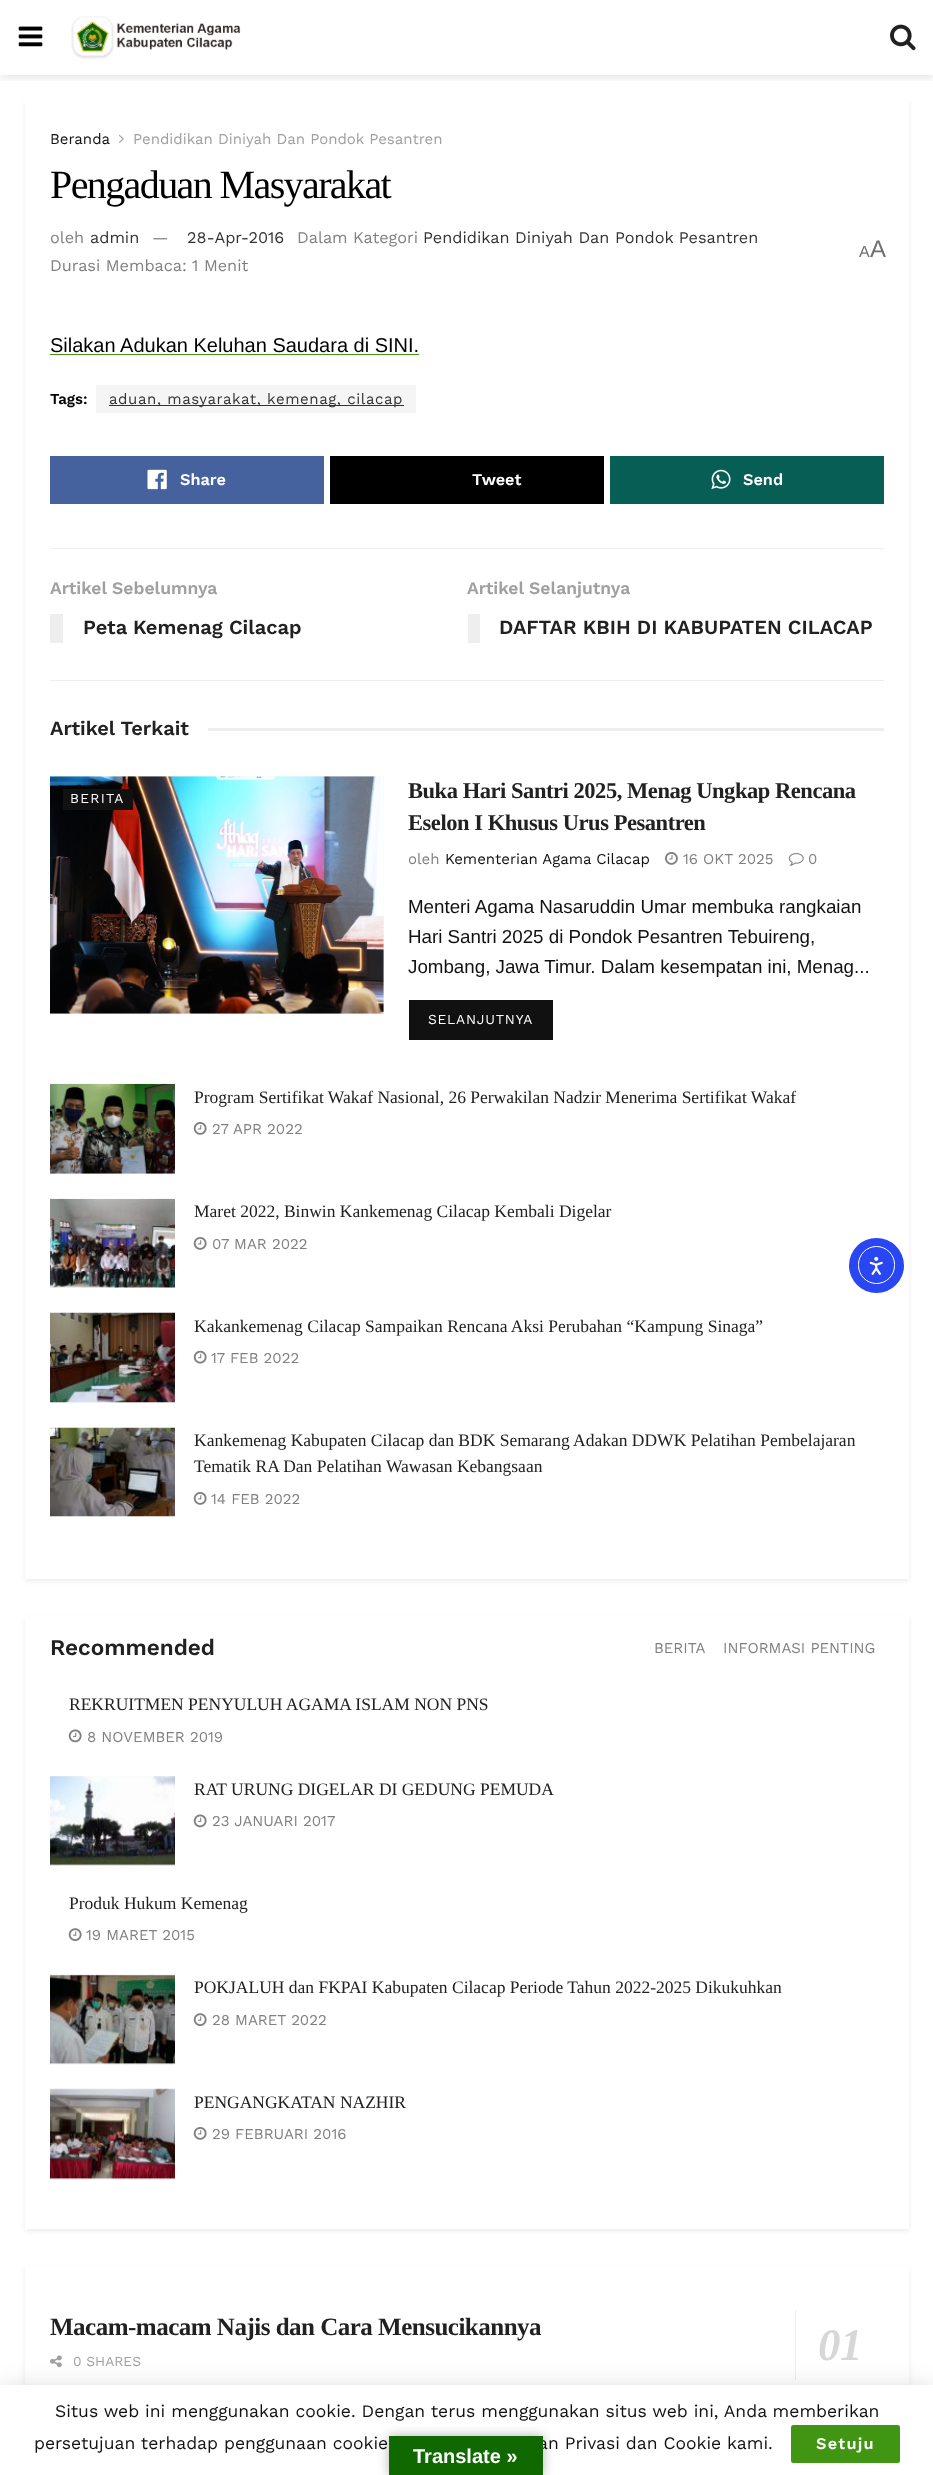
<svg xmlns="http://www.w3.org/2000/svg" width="933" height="2475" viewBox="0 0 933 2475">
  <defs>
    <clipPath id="clip1"><rect x="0" y="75" width="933" height="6"/></clipPath>
  </defs>
  <rect width="100%" height="100%" fill="rgb(255,255,255)"/>
  <g clip-path="url(#clip1)">
    <rect x="0" y="3" width="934" height="75" fill="rgba(0,0,0,0.1)" filter="blur(4px)"/>
  </g>
  <image x="18" y="26" width="25" height="21" href="pic1.png"/>
  <image x="71" y="16" width="170" height="43" href="pic2.png"/>
  <image x="890" y="24" width="26" height="27" href="pic3.png"/>
  <rect x="25" y="103" width="884" height="1478" fill="rgba(0,0,0,0.08)" filter="blur(2.5px)"/>
  <rect x="25" y="100" width="884" height="1479" fill="rgb(255,255,255)"/>
  <text x="50" y="144" font-family="Work Sans" font-size="15" fill="rgb(17,17,17)">Beranda</text>
  <image x="118" y="134" width="6" height="9" href="pic4.png"/>
  <text x="133" y="144" font-family="Work Sans" font-size="15" fill="rgb(160,160,160)">Pendidikan Diniyah Dan Pondok Pesantren</text>
  <text x="50" y="198" font-family="Liberation Serif" font-size="40" letter-spacing="-1.6" fill="rgb(0,0,0)">Pengaduan Masyarakat</text>
  <text x="50" y="243" font-family="Work Sans" font-size="16.25" fill="rgb(128,128,128)">oleh</text>
  <text x="90" y="243" font-family="Work Sans" font-size="16.25" fill="rgb(51,51,51)">admin</text>
  <text x="152" y="243" font-family="Work Sans" font-size="16.25" fill="rgb(128,128,128)">—</text>
  <text x="187" y="243" font-family="Work Sans" font-size="16.25" fill="rgb(51,51,51)">28-Apr-2016</text>
  <text x="297" y="243" font-family="Work Sans" font-size="16.25" fill="rgb(128,128,128)">Dalam Kategori</text>
  <text x="423" y="243" font-family="Work Sans" font-size="16.25" fill="rgb(51,51,51)">Pendidikan Diniyah Dan Pondok Pesantren</text>
  <text x="50" y="271" font-family="Work Sans" font-size="16.25" fill="rgb(128,128,128)">Durasi Membaca: 1 Menit</text>
  <text x="859" y="257" font-family="Liberation Sans" font-size="16" fill="rgb(112,112,112)">A</text>
  <text x="870" y="257" font-family="Liberation Sans" font-size="24" fill="rgb(112,112,112)">A</text>
  <text x="50" y="352" font-family="Liberation Sans" font-size="20" fill="rgb(0,0,0)">Silakan Adukan Keluhan Saudara di SINI.</text>
  <rect x="50" y="354" width="369" height="1" fill="rgb(64,150,18)"/>
  <text x="50" y="404" font-family="Work Sans" font-size="15" font-weight="600" fill="rgb(0,0,0)">Tags:</text>
  <rect x="96" y="385" width="320" height="28" fill="rgb(245,245,245)"/>
  <rect x="109" y="405" width="295" height="1" fill="rgb(51,51,51)"/>
  <text x="109" y="404" font-family="Work Sans" font-size="15" letter-spacing="0.6" fill="rgb(51,51,51)">aduan, masyarakat, kemenag, cilacap</text>
  <rect x="50" y="456" width="274" height="48" fill="rgb(69,98,159)"/>
  <image x="147" y="469" width="20" height="21" href="pic5.png"/>
  <text x="180" y="485" font-family="Work Sans" font-size="16.25" font-weight="600" fill="rgb(255,255,255)">Share</text>
  <rect x="330" y="456" width="274" height="48" fill="rgb(0,0,0)"/>
  <text x="472" y="485" font-family="Work Sans" font-size="16.25" font-weight="600" fill="rgb(255,255,255)">Tweet</text>
  <rect x="610" y="456" width="274" height="48" fill="rgb(7,94,84)"/>
  <image x="711" y="469" width="20" height="21" href="pic6.png"/>
  <text x="743" y="485" font-family="Work Sans" font-size="16.25" font-weight="600" fill="rgb(255,255,255)">Send</text>
  <rect x="50" y="548" width="834" height="1" fill="rgb(238,238,238)"/>
  <rect x="50" y="680" width="834" height="1" fill="rgb(238,238,238)"/>
  <text x="50" y="594" font-family="Work Sans" font-size="17.5" font-weight="600" fill="rgb(160,160,160)">Artikel Sebelumnya</text>
  <rect x="50" y="614" width="13" height="29" fill="rgb(238,238,238)"/>
  <text x="83" y="634" font-family="Work Sans" font-size="20" font-weight="600" fill="rgb(33,33,33)">Peta Kemenag Cilacap</text>
  <text x="467" y="594" font-family="Work Sans" font-size="17.5" font-weight="600" fill="rgb(160,160,160)">Artikel Selanjutnya</text>
  <rect x="468" y="614" width="12" height="29" fill="rgb(238,238,238)"/>
  <g font-family="Work Sans" font-size="20" font-weight="600" fill="rgb(33,33,33)">
    <text x="499" y="634">DAFTAR KBIH DI KABUPATEN CILACAP</text>
    <text x="50" y="735">Artikel Terkait</text>
  </g>
  <rect x="208" y="728" width="676" height="3" fill="rgb(238,238,238)"/>
  <rect x="50" y="776" width="334" height="238" fill="rgb(247,247,247)"/>
  <image x="50" y="776" width="334" height="238" href="pic7.png"/>
  <rect x="63" y="789" width="70" height="21" fill="rgb(17,17,17)"/>
  <text x="70" y="803" font-family="Work Sans" font-size="13.75" letter-spacing="1.25" fill="rgb(255,255,255)">BERITA</text>
  <g font-family="Liberation Serif" font-size="22.5" font-weight="bold" letter-spacing="-0.45" fill="rgb(33,33,33)">
    <text>
      <tspan x="408" y="798">Buka Hari Santri 2025, Menag Ungkap Rencana</tspan>
      <tspan x="408" y="830">Eselon I Khusus Urus Pesantren</tspan>
    </text>
  </g>
  <text x="408" y="864" font-family="Work Sans" font-size="15" fill="rgb(128,128,128)">oleh</text>
  <text x="445" y="864" font-family="Work Sans" font-size="15" fill="rgb(17,17,17)">Kementerian Agama Cilacap</text>
  <image x="665" y="852" width="13" height="13" href="pic8.png"/>
  <text x="683" y="864" font-family="Work Sans" font-size="15" fill="rgb(128,128,128)">16 OKT 2025</text>
  <image x="788" y="853" width="16" height="13" href="pic9.png"/>
  <text x="808" y="864" font-family="Work Sans" font-size="15" fill="rgb(128,128,128)">0</text>
  <g font-family="Liberation Sans" font-size="18.75" fill="rgb(17,17,17)">
    <text>
      <tspan x="408" y="913">Menteri Agama Nasaruddin Umar membuka rangkaian</tspan>
      <tspan x="408" y="943">Hari Santri 2025 di Pondok Pesantren Tebuireng,</tspan>
      <tspan x="408" y="973">Jombang, Jawa Timur. Dalam kesempatan ini, Menag...</tspan>
    </text>
  </g>
  <rect x="409" y="1000" width="144" height="40" fill="rgb(17,17,17)"/>
  <text x="428" y="1024" font-family="Work Sans" font-size="13.75" letter-spacing="0.75" fill="rgb(255,255,255)">SELANJUTNYA</text>
  <rect x="50" y="1173" width="125" height="1" fill="rgb(247,247,247)"/>
  <image x="50" y="1083" width="125" height="91" href="pic10.png"/>
  <text x="194" y="1103" font-family="Liberation Serif" font-size="17.5" fill="rgb(33,33,33)">Program Sertifikat Wakaf Nasional, 26 Perwakilan Nadzir Menerima Sertifikat Wakaf</text>
  <image x="193" y="1122" width="14" height="13" href="pic11.png"/>
  <text x="212" y="1134" font-family="Work Sans" font-size="15" fill="rgb(128,128,128)">27 APR 2022</text>
  <rect x="50" y="1287" width="125" height="1" fill="rgb(247,247,247)"/>
  <image x="50" y="1198" width="125" height="90" href="pic12.png"/>
  <text x="194" y="1217" font-family="Liberation Serif" font-size="17.5" fill="rgb(33,33,33)">Maret 2022, Binwin Kankemenag Cilacap Kembali Digelar</text>
  <image x="193" y="1237" width="14" height="13" href="pic11.png"/>
  <text x="212" y="1249" font-family="Work Sans" font-size="15" fill="rgb(128,128,128)">07 MAR 2022</text>
  <rect x="50" y="1402" width="125" height="1" fill="rgb(247,247,247)"/>
  <image x="50" y="1312" width="125" height="91" href="pic13.png"/>
  <text x="194" y="1332" font-family="Liberation Serif" font-size="17.5" fill="rgb(33,33,33)">Kakankemenag Cilacap Sampaikan Rencana Aksi Perubahan “Kampung Sinaga”</text>
  <image x="193" y="1350" width="14" height="14" href="pic14.png"/>
  <text x="211" y="1363" font-family="Work Sans" font-size="15" fill="rgb(128,128,128)">17 FEB 2022</text>
  <image x="50" y="1427" width="125" height="90" href="pic15.png"/>
  <g font-family="Liberation Serif" font-size="17.5" fill="rgb(33,33,33)">
    <text>
      <tspan x="194" y="1446">Kankemenag Kabupaten Cilacap dan BDK Semarang Adakan DDWK Pelatihan Pembelajaran</tspan>
      <tspan x="194" y="1472">Tematik RA Dan Pelatihan Wawasan Kebangsaan</tspan>
    </text>
  </g>
  <image x="193" y="1492" width="14" height="13" href="pic11.png"/>
  <text x="211" y="1504" font-family="Work Sans" font-size="15" fill="rgb(128,128,128)">14 FEB 2022</text>
  <rect x="25" y="1619" width="884" height="612" fill="rgba(0,0,0,0.08)" filter="blur(2.5px)"/>
  <rect x="25" y="1616" width="884" height="613" fill="rgb(255,255,255)"/>
  <text x="50" y="1655" font-family="Work Sans" font-size="22.5" font-weight="600" fill="rgb(33,33,33)">Recommended</text>
  <g font-family="Work Sans" font-size="15" fill="rgb(128,128,128)">
    <text x="654" y="1653">BERITA</text>
    <text x="723" y="1653">INFORMASI PENTING</text>
  </g>
  <text x="69" y="1710" font-family="Liberation Serif" font-size="17.5" fill="rgb(33,33,33)">REKRUITMEN PENYULUH AGAMA ISLAM NON PNS</text>
  <image x="68" y="1729" width="14" height="14" href="pic16.png"/>
  <text x="87" y="1742" font-family="Work Sans" font-size="15" fill="rgb(128,128,128)">8 NOVEMBER 2019</text>
  <rect x="50" y="1776" width="125" height="89" fill="rgb(247,247,247)"/>
  <image x="50" y="1776" width="125" height="90" href="pic17.png"/>
  <text x="194" y="1795" font-family="Liberation Serif" font-size="17.5" fill="rgb(33,33,33)">RAT URUNG DIGELAR DI GEDUNG PEMUDA</text>
  <image x="193" y="1814" width="14" height="14" href="pic16.png"/>
  <text x="212" y="1826" font-family="Work Sans" font-size="15" fill="rgb(128,128,128)">23 JANUARI 2017</text>
  <text x="69" y="1909" font-family="Liberation Serif" font-size="17.5" fill="rgb(33,33,33)">Produk Hukum Kemenag</text>
  <image x="68" y="1928" width="14" height="13" href="pic18.png"/>
  <text x="86" y="1940" font-family="Work Sans" font-size="15" fill="rgb(128,128,128)">19 MARET 2015</text>
  <rect x="50" y="1975" width="125" height="89" fill="rgb(247,247,247)"/>
  <image x="50" y="1974" width="125" height="91" href="pic19.png"/>
  <text x="194" y="1993" font-family="Liberation Serif" font-size="17.5" fill="rgb(33,33,33)">POKJALUH dan FKPAI Kabupaten Cilacap Periode Tahun 2022-2025 Dikukuhkan</text>
  <image x="193" y="2013" width="14" height="13" href="pic18.png"/>
  <text x="212" y="2025" font-family="Work Sans" font-size="15" fill="rgb(128,128,128)">28 MARET 2022</text>
  <rect x="50" y="2089" width="125" height="90" fill="rgb(247,247,247)"/>
  <image x="50" y="2088" width="125" height="92" href="pic20.png"/>
  <text x="194" y="2108" font-family="Liberation Serif" font-size="17.5" fill="rgb(33,33,33)">PENGANGKATAN NAZHIR</text>
  <image x="193" y="2127" width="14" height="13" href="pic11.png"/>
  <text x="212" y="2139" font-family="Work Sans" font-size="15" fill="rgb(128,128,128)">29 FEBRUARI 2016</text>
  <rect x="25" y="2269" width="884" height="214" fill="rgba(0,0,0,0.08)" filter="blur(2.5px)"/>
  <rect x="25" y="2266" width="884" height="119" fill="rgb(255,255,255)"/>
  <text x="50" y="2335" font-family="Liberation Serif" font-size="25" font-weight="bold" letter-spacing="-0.5" fill="rgb(33,33,33)">Macam-macam Najis dan Cara Mensucikannya</text>
  <rect x="795" y="2310" width="1" height="70" fill="rgb(238,238,238)"/>
  <text x="818" y="2360" font-family="Liberation Serif" font-size="45" font-weight="bold" font-style="italic" letter-spacing="-0.5" fill="rgb(215,215,215)">01</text>
  <image x="50" y="2355" width="12" height="13" href="pic21.png"/>
  <text x="73" y="2366" font-family="Work Sans" font-size="13.75" fill="rgb(160,160,160)">0 SHARES</text>
  <circle cx="876.5" cy="1265.5" r="27.5" fill="rgb(40,71,243)"/>
  <rect x="858.5" y="1246.5" width="36" height="37" rx="18" fill="none" stroke="rgb(255,255,255)"/>
  <image x="869" y="1256" width="14" height="19" href="pic22.png"/>
  <rect x="0" y="2388" width="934" height="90" fill="rgba(0,0,0,0.15)" filter="blur(12.5px)"/>
  <rect x="0" y="2385" width="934" height="90" fill="rgba(0,0,0,0.2)" filter="blur(0.5px)"/>
  <rect x="0" y="2385" width="933" height="90" fill="rgb(255,255,255)"/>
  <g font-family="Work Sans" font-size="17.5" fill="rgb(17,17,17)">
    <text x="55" y="2417">Situs web ini menggunakan cookie. Dengan terus menggunakan situs web ini, Anda memberikan</text>
    <text x="34" y="2449">persetujuan terhadap penggunaan cookie</text>
    <text x="538" y="2449">an Privasi dan Cookie kami.</text>
  </g>
  <rect x="791" y="2425" width="109" height="38" rx="2.5" fill="rgb(64,150,18)"/>
  <text x="816" y="2449" font-family="Work Sans" font-size="16.25" font-weight="600" letter-spacing="1.25" fill="rgb(255,255,255)">Setuju</text>
  <rect x="389" y="2436" width="154" height="39" fill="rgba(0,0,0,0.3)" filter="blur(5.5px)"/>
  <rect x="389" y="2436" width="154" height="39" fill="rgb(16,104,1)"/>
  <text x="413" y="2463" font-family="Liberation Sans" font-size="20" font-weight="bold" fill="rgb(255,255,255)">Translate »</text>
</svg>
